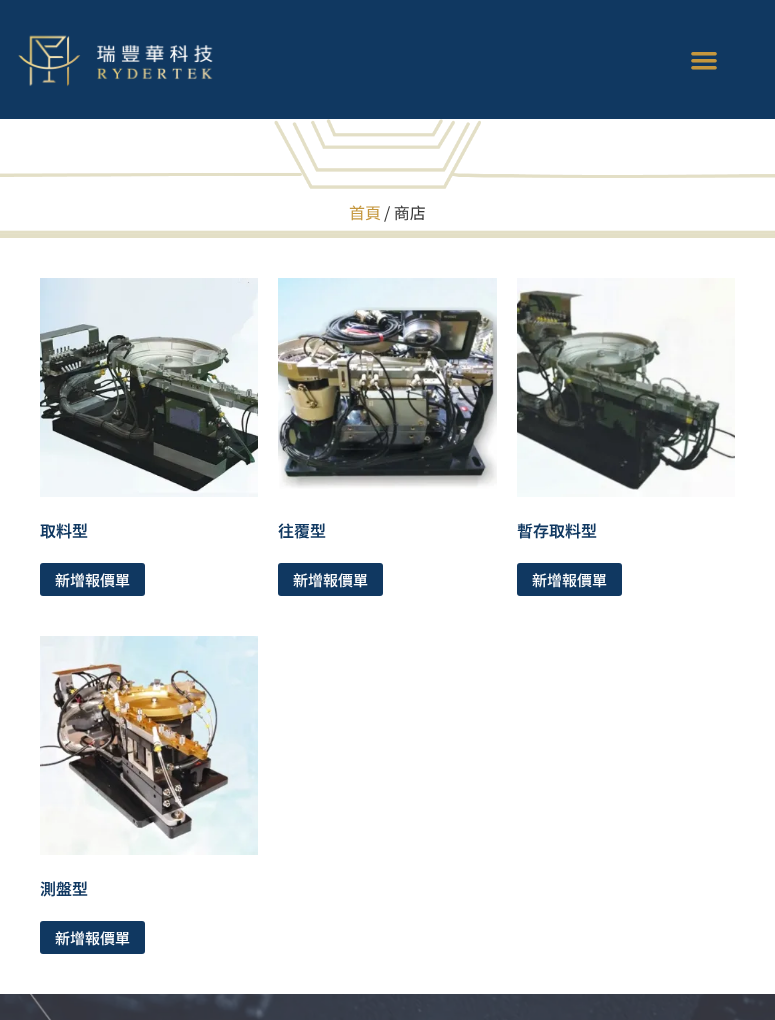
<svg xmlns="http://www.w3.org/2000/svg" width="775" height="1020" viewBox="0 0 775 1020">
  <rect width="100%" height="100%" fill="rgb(255,255,255)"/>
  <rect x="0" y="0" width="775" height="119" fill="rgb(16,56,97)"/>
  <image x="18" y="35" width="195" height="52" href="pic1.png"/>
  <image x="691" y="52" width="26" height="18" href="pic2.png"/>
  <image x="0" y="119" width="775" height="115" href="pic3.png"/>
  <rect x="0" y="234" width="775" height="4" fill="rgb(227,223,198)"/>
  <text x="349" y="219" font-family="Noto Sans TC" font-size="16" fill="rgb(197,151,62)">首頁</text>
  <text x="384" y="219" font-family="Noto Sans TC" font-size="16" fill="rgb(51,51,51)">/ 商店</text>
  <image x="40" y="278" width="218" height="219" href="pic4.png"/>
  <text x="40" y="537" font-family="Noto Sans TC" font-size="16" font-weight="600" fill="rgb(16,56,97)">取料型</text>
  <rect x="40" y="563" width="105" height="33" rx="3" fill="rgb(16,56,97)"/>
  <text x="55" y="586" font-family="Noto Sans TC" font-size="15" font-weight="500" fill="rgb(255,255,255)">新增報價單</text>
  <image x="278" y="278" width="219" height="211" href="pic5.png"/>
  <text x="278" y="537" font-family="Noto Sans TC" font-size="16" font-weight="600" fill="rgb(16,56,97)">往覆型</text>
  <rect x="278" y="563" width="105" height="33" rx="3" fill="rgb(16,56,97)"/>
  <text x="293" y="586" font-family="Noto Sans TC" font-size="15" font-weight="500" fill="rgb(255,255,255)">新增報價單</text>
  <image x="517" y="278" width="218" height="219" href="pic6.png"/>
  <text x="517" y="537" font-family="Noto Sans TC" font-size="16" font-weight="600" fill="rgb(16,56,97)">暫存取料型</text>
  <rect x="517" y="563" width="105" height="33" rx="3" fill="rgb(16,56,97)"/>
  <text x="532" y="586" font-family="Noto Sans TC" font-size="15" font-weight="500" fill="rgb(255,255,255)">新增報價單</text>
  <image x="40" y="636" width="218" height="219" href="pic7.png"/>
  <text x="40" y="895" font-family="Noto Sans TC" font-size="16" font-weight="600" fill="rgb(16,56,97)">測盤型</text>
  <rect x="40" y="921" width="105" height="33" rx="3" fill="rgb(16,56,97)"/>
  <text x="55" y="944" font-family="Noto Sans TC" font-size="15" font-weight="500" fill="rgb(255,255,255)">新增報價單</text>
  <image x="0" y="994" width="775" height="26" href="pic8.png"/>
</svg>
